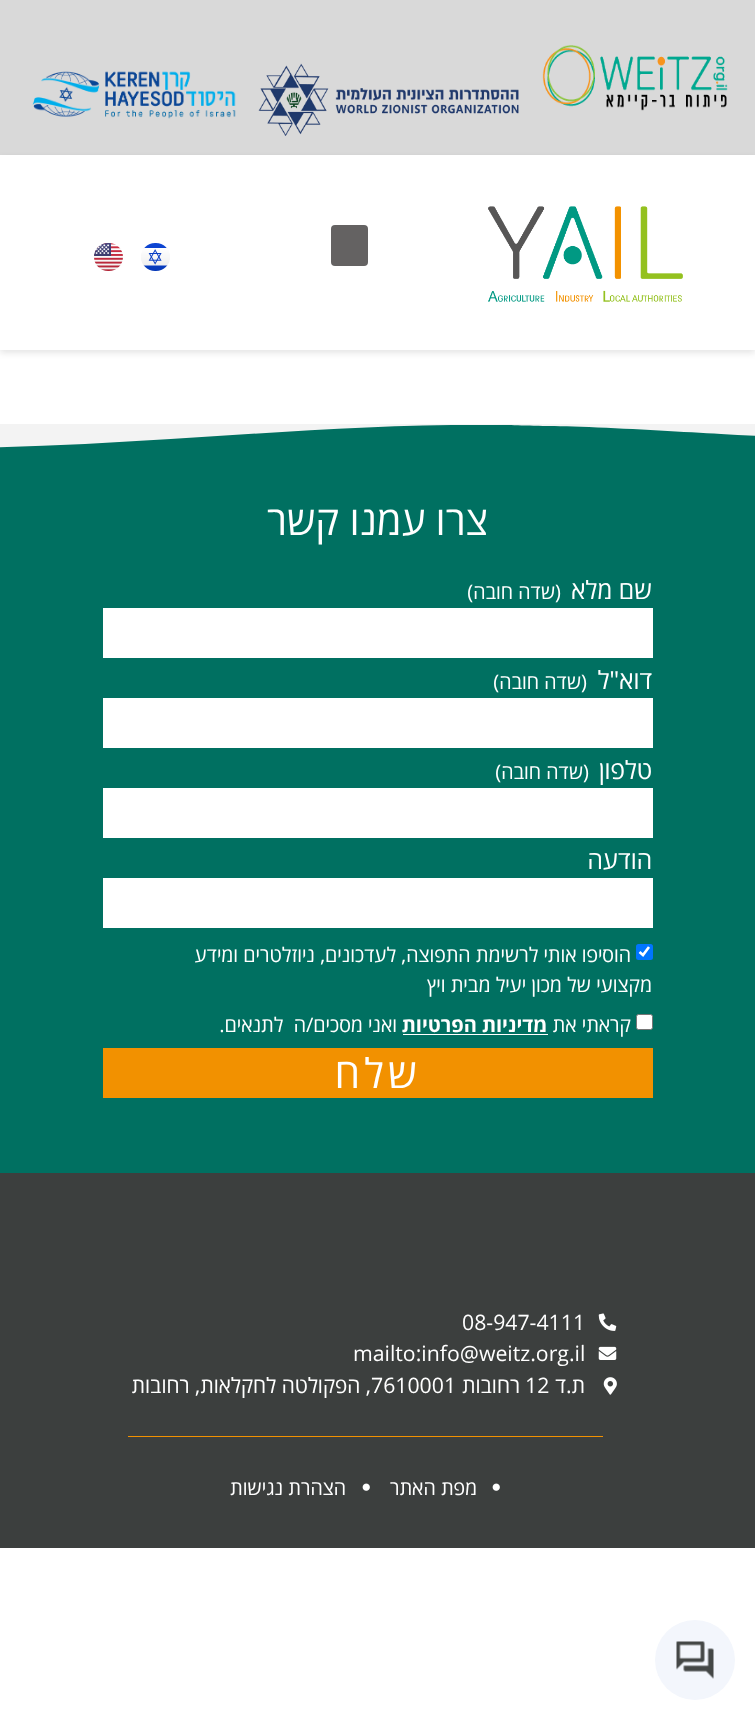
<svg xmlns="http://www.w3.org/2000/svg" width="755" height="1720" viewBox="0 0 755 1720">
  <rect width="100%" height="100%" fill="rgb(255,255,255)"/>
  <rect x="0" y="0" width="755" height="155" fill="rgb(217,217,217)"/>
  <image x="542" y="45" width="186" height="66" href="pic1.png"/>
  <image x="258" y="63" width="261" height="73" href="pic2.png"/>
  <image x="32" y="71" width="204" height="48" href="pic3.png"/>
  <rect x="0" y="158" width="755" height="195" fill="rgba(0,0,0,0.1)" filter="blur(3px)"/>
  <rect x="0" y="155" width="755" height="195" fill="rgb(255,255,255)"/>
  <image x="488" y="206" width="195" height="96" href="pic4.png"/>
  <rect x="331" y="225" width="37" height="41" rx="4" fill="rgb(100,98,98)"/>
  <image x="141" y="243" width="29" height="28" href="pic5.png"/>
  <image x="94" y="243" width="29" height="28" href="pic6.png"/>
  <rect x="0" y="425" width="755" height="748" fill="rgb(0,112,97)"/>
  <path d="M507 425C366 423 226 437 85 444C-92 452-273 453-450 442V424H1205V432C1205 432 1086 440 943 440C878 440 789 438 721 434C686 432 635 429 589 427C544 426 524 426 507 425Z" fill="rgb(243,243,243)"/>
  <text x="488" y="535" font-family="Open Sans" font-size="40" direction="rtl" fill="rgb(255,255,255)">צרו עמנו קשר</text>
  <text x="652" y="599" font-family="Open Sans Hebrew" font-size="25" direction="rtl" fill="rgb(255,255,255)">שם מלא</text>
  <text x="561" y="599" font-family="Open Sans Hebrew" font-size="20" direction="rtl" fill="rgb(255,255,255)">(שדה חובה)</text>
  <rect x="103" y="608" width="550" height="50" fill="rgb(255,255,255)"/>
  <text x="652" y="689" font-family="Open Sans Hebrew" font-size="25" direction="rtl" fill="rgb(255,255,255)">דוא"ל</text>
  <text x="587" y="689" font-family="Open Sans Hebrew" font-size="20" direction="rtl" fill="rgb(255,255,255)">(שדה חובה)</text>
  <rect x="103" y="698" width="550" height="50" fill="rgb(255,255,255)"/>
  <text x="652" y="779" font-family="Open Sans Hebrew" font-size="25" direction="rtl" fill="rgb(255,255,255)">טלפון</text>
  <text x="589" y="779" font-family="Open Sans Hebrew" font-size="20" direction="rtl" fill="rgb(255,255,255)">(שדה חובה)</text>
  <rect x="103" y="788" width="550" height="50" fill="rgb(255,255,255)"/>
  <text x="652" y="869" font-family="Open Sans Hebrew" font-size="25" direction="rtl" fill="rgb(255,255,255)">הודעה</text>
  <rect x="103" y="878" width="550" height="50" fill="rgb(255,255,255)"/>
  <rect x="636" y="944" width="17" height="16" rx="2.5" fill="rgb(0,117,255)"/>
  <path d="M639.5 952L643 955L649 947" fill="none" stroke="rgb(255,255,255)" stroke-width="2.6"/>
  <g font-family="Open Sans Hebrew" font-size="20" direction="rtl" fill="rgb(255,255,255)">
    <text x="631" y="962">הוסיפו אותי לרשימת התפוצה, לעדכונים, ניוזלטרים ומידע</text>
    <text x="652" y="992">מקצועי של מכון יעיל מבית ויץ</text>
  </g>
  <rect x="636.5" y="1014.5" width="16" height="15" rx="2" fill="rgb(255,255,255)" stroke="rgb(118,118,118)"/>
  <text x="631" y="1032" font-family="Open Sans Hebrew" font-size="20" direction="rtl" fill="rgb(255,255,255)">קראתי את</text>
  <text x="547" y="1032" font-family="Open Sans Hebrew" font-size="20" font-weight="bold" direction="rtl" fill="rgb(255,255,255)">מדיניות הפרטיות</text>
  <rect x="403" y="1034" width="145" height="1" fill="rgb(255,255,255)"/>
  <text x="397" y="1032" font-family="Open Sans Hebrew" font-size="20" direction="rtl" fill="rgb(255,255,255)" xml:space="preserve">ואני מסכים/ה  לתנאים.</text>
  <rect x="103" y="1048" width="550" height="50" fill="rgb(242,145,0)"/>
  <text x="421" y="1088" font-family="Open Sans Hebrew" font-size="41" letter-spacing="4" direction="rtl" fill="rgb(255,255,255)">שלח</text>
  <rect x="0" y="1173" width="755" height="375" fill="rgb(60,63,62)"/>
  <image x="598" y="1313" width="19" height="18" href="pic7.png"/>
  <text x="462" y="1330" font-family="Open Sans Hebrew" font-size="21.25" fill="rgb(255,255,255)">08-947-4111</text>
  <image x="598" y="1346" width="19" height="14" href="pic8.png"/>
  <text x="353" y="1361" font-family="Open Sans Hebrew" font-size="21.25" fill="rgb(255,255,255)">mailto:info@weitz.org.il</text>
  <image x="603" y="1377" width="14" height="18" href="pic9.png"/>
  <text x="585" y="1393" font-family="Open Sans Hebrew" font-size="21.25" direction="rtl" fill="rgb(255,255,255)">ת.ד</text>
  <text x="525" y="1393" font-family="Open Sans Hebrew" font-size="21.25" fill="rgb(255,255,255)">12</text>
  <text x="520" y="1393" font-family="Open Sans Hebrew" font-size="21.25" direction="rtl" fill="rgb(255,255,255)">רחובות</text>
  <text x="371" y="1393" font-family="Open Sans Hebrew" font-size="21.25" fill="rgb(255,255,255)">7610001</text>
  <text x="371" y="1393" font-family="Open Sans Hebrew" font-size="21.25" direction="rtl" fill="rgb(255,255,255)">, הפקולטה לחקלאות, רחובות</text>
  <rect x="128" y="1436" width="475" height="1" fill="rgb(242,145,0)"/>
  <image x="492" y="1483" width="8" height="8" href="pic10.png"/>
  <text x="477" y="1495" font-family="Open Sans Hebrew" font-size="20" direction="rtl" fill="rgb(255,255,255)">מפת האתר</text>
  <image x="362" y="1483" width="8" height="8" href="pic10.png"/>
  <text x="346" y="1495" font-family="Open Sans Hebrew" font-size="20" direction="rtl" fill="rgb(255,255,255)">הצהרת נגישות</text>
  <circle cx="695" cy="1660" r="40" fill="rgb(243,246,252)"/>
  <image x="676" y="1641" width="38" height="38" href="pic11.png"/>
</svg>
